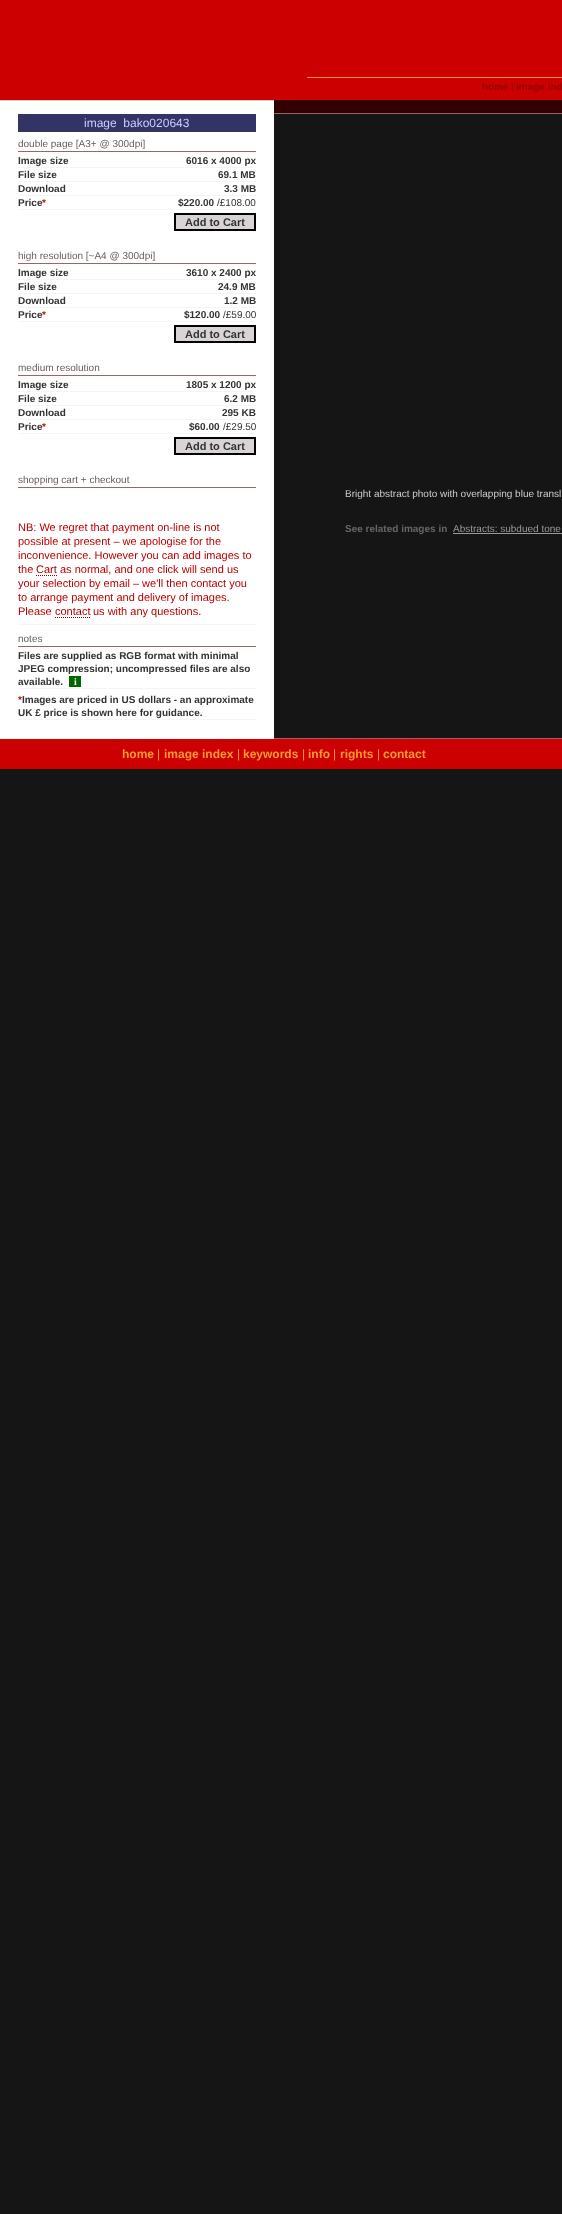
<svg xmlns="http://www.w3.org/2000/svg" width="562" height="2214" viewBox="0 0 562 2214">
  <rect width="100%" height="100%" fill="rgb(21,21,21)"/>
  <rect x="0" y="0" width="562" height="100" fill="rgb(204,0,0)"/>
  <rect x="307" y="77" width="255" height="1" fill="rgb(255,153,0)"/>
  <text x="482" y="90" font-family="Liberation Sans" font-size="10" font-weight="bold" fill="rgb(153,0,0)">home</text>
  <text x="511" y="90" font-family="Liberation Sans" font-size="10" fill="rgb(153,0,0)">|</text>
  <text x="516" y="90" font-family="Liberation Sans" font-size="10" font-weight="bold" fill="rgb(153,0,0)">image ind</text>
  <rect x="0" y="101" width="274" height="638" fill="rgb(255,255,255)"/>
  <rect x="0" y="100" width="274" height="1" fill="rgb(204,204,204)"/>
  <rect x="274" y="101" width="288" height="12" fill="rgb(51,0,0)"/>
  <rect x="274" y="113" width="288" height="1" fill="rgb(153,102,102)"/>
  <rect x="18" y="114" width="238" height="18" fill="rgb(51,51,102)"/>
  <text x="84" y="127" font-family="Liberation Sans" font-size="12" fill="rgb(204,204,255)" xml:space="preserve">image  bako020643</text>
  <text x="18" y="147" font-family="Liberation Sans" font-size="10" fill="rgb(102,96,96)">double page [A3+ @ 300dpi]</text>
  <rect x="18" y="151" width="238" height="1" fill="rgb(153,102,102)"/>
  <rect x="18" y="167" width="238" height="1" fill="rgb(245,245,245)"/>
  <g font-family="Liberation Sans" font-size="10" font-weight="bold" fill="rgb(51,51,51)">
    <text x="18" y="164">Image size</text>
    <text x="186" y="164">6016 x 4000 px</text>
  </g>
  <rect x="18" y="181" width="238" height="1" fill="rgb(245,245,245)"/>
  <g font-family="Liberation Sans" font-size="10" font-weight="bold" fill="rgb(51,51,51)">
    <text x="18" y="178">File size</text>
    <text x="218" y="178">69.1 MB</text>
  </g>
  <rect x="18" y="195" width="238" height="1" fill="rgb(245,245,245)"/>
  <g font-family="Liberation Sans" font-size="10" font-weight="bold" fill="rgb(51,51,51)">
    <text x="18" y="192">Download</text>
    <text x="224" y="192">3.3 MB</text>
  </g>
  <rect x="18" y="209" width="238" height="1" fill="rgb(245,245,245)"/>
  <text x="18" y="206" font-family="Liberation Sans" font-size="10" font-weight="bold" fill="rgb(51,51,51)">Price</text>
  <text x="42" y="206" font-family="Liberation Sans" font-size="10" font-weight="bold" fill="rgb(187,0,0)">*</text>
  <text x="178" y="206" font-family="Liberation Sans" font-size="10" font-weight="bold" fill="rgb(51,51,51)">$220.00</text>
  <text x="217" y="206" font-family="Liberation Sans" font-size="10" fill="rgb(51,51,51)">/£108.00</text>
  <rect x="175" y="214" width="80" height="16" fill="rgb(216,212,212)" stroke="rgb(0,0,0)" stroke-width="2"/>
  <text x="185" y="226" font-family="Liberation Sans" font-size="11" font-weight="bold" fill="rgb(51,51,51)">Add to Cart</text>
  <text x="18" y="259" font-family="Liberation Sans" font-size="10" fill="rgb(102,96,96)">high resolution [~A4 @ 300dpi]</text>
  <rect x="18" y="263" width="238" height="1" fill="rgb(153,102,102)"/>
  <rect x="18" y="279" width="238" height="1" fill="rgb(245,245,245)"/>
  <g font-family="Liberation Sans" font-size="10" font-weight="bold" fill="rgb(51,51,51)">
    <text x="18" y="276">Image size</text>
    <text x="186" y="276">3610 x 2400 px</text>
  </g>
  <rect x="18" y="293" width="238" height="1" fill="rgb(245,245,245)"/>
  <g font-family="Liberation Sans" font-size="10" font-weight="bold" fill="rgb(51,51,51)">
    <text x="18" y="290">File size</text>
    <text x="218" y="290">24.9 MB</text>
  </g>
  <rect x="18" y="307" width="238" height="1" fill="rgb(245,245,245)"/>
  <g font-family="Liberation Sans" font-size="10" font-weight="bold" fill="rgb(51,51,51)">
    <text x="18" y="304">Download</text>
    <text x="224" y="304">1.2 MB</text>
  </g>
  <rect x="18" y="321" width="238" height="1" fill="rgb(245,245,245)"/>
  <text x="18" y="318" font-family="Liberation Sans" font-size="10" font-weight="bold" fill="rgb(51,51,51)">Price</text>
  <text x="42" y="318" font-family="Liberation Sans" font-size="10" font-weight="bold" fill="rgb(187,0,0)">*</text>
  <text x="184" y="318" font-family="Liberation Sans" font-size="10" font-weight="bold" fill="rgb(51,51,51)">$120.00</text>
  <text x="223" y="318" font-family="Liberation Sans" font-size="10" fill="rgb(51,51,51)">/£59.00</text>
  <rect x="175" y="326" width="80" height="16" fill="rgb(216,212,212)" stroke="rgb(0,0,0)" stroke-width="2"/>
  <text x="185" y="338" font-family="Liberation Sans" font-size="11" font-weight="bold" fill="rgb(51,51,51)">Add to Cart</text>
  <text x="18" y="371" font-family="Liberation Sans" font-size="10" fill="rgb(102,96,96)">medium resolution</text>
  <rect x="18" y="375" width="238" height="1" fill="rgb(153,102,102)"/>
  <rect x="18" y="391" width="238" height="1" fill="rgb(245,245,245)"/>
  <g font-family="Liberation Sans" font-size="10" font-weight="bold" fill="rgb(51,51,51)">
    <text x="18" y="388">Image size</text>
    <text x="186" y="388">1805 x 1200 px</text>
  </g>
  <rect x="18" y="405" width="238" height="1" fill="rgb(245,245,245)"/>
  <g font-family="Liberation Sans" font-size="10" font-weight="bold" fill="rgb(51,51,51)">
    <text x="18" y="402">File size</text>
    <text x="224" y="402">6.2 MB</text>
  </g>
  <rect x="18" y="419" width="238" height="1" fill="rgb(245,245,245)"/>
  <g font-family="Liberation Sans" font-size="10" font-weight="bold" fill="rgb(51,51,51)">
    <text x="18" y="416">Download</text>
    <text x="222" y="416">295 KB</text>
  </g>
  <rect x="18" y="433" width="238" height="1" fill="rgb(245,245,245)"/>
  <text x="18" y="430" font-family="Liberation Sans" font-size="10" font-weight="bold" fill="rgb(51,51,51)">Price</text>
  <text x="42" y="430" font-family="Liberation Sans" font-size="10" font-weight="bold" fill="rgb(187,0,0)">*</text>
  <text x="189" y="430" font-family="Liberation Sans" font-size="10" font-weight="bold" fill="rgb(51,51,51)">$60.00</text>
  <text x="223" y="430" font-family="Liberation Sans" font-size="10" fill="rgb(51,51,51)">/£29.50</text>
  <rect x="175" y="438" width="80" height="16" fill="rgb(216,212,212)" stroke="rgb(0,0,0)" stroke-width="2"/>
  <text x="185" y="450" font-family="Liberation Sans" font-size="11" font-weight="bold" fill="rgb(51,51,51)">Add to Cart</text>
  <text x="18" y="483" font-family="Liberation Sans" font-size="10" fill="rgb(102,96,96)">shopping cart + checkout</text>
  <rect x="18" y="487" width="238" height="1" fill="rgb(153,102,102)"/>
  <rect x="18" y="624" width="238" height="1" fill="rgb(245,245,245)"/>
  <g font-family="Liberation Sans" font-size="11" fill="rgb(187,0,0)">
    <text>
      <tspan x="18" y="531">NB: We regret that payment on-line is not</tspan>
      <tspan x="18" y="545">possible at present – we apologise for the</tspan>
      <tspan x="18" y="559">inconvenience. However you can add images to</tspan>
      <tspan x="18" y="573">the</tspan>
    </text>
  </g>
  <text x="36" y="573" font-family="Liberation Sans" font-size="11" fill="rgb(170,0,0)">Cart</text>
  <path d="M36 575.5H57" fill="none" stroke="rgb(153,0,0)" stroke-dasharray="1 1"/>
  <g font-family="Liberation Sans" font-size="11" fill="rgb(187,0,0)">
    <text x="60" y="573">as normal, and one click will send us</text>
    <text>
      <tspan x="18" y="587">your selection by email – we'll then contact you</tspan>
      <tspan x="18" y="601">to arrange payment and delivery of images.</tspan>
      <tspan x="18" y="615">Please</tspan>
    </text>
  </g>
  <text x="55" y="615" font-family="Liberation Sans" font-size="11" fill="rgb(170,0,0)">contact</text>
  <path d="M55 617.5H90" fill="none" stroke="rgb(153,0,0)" stroke-dasharray="1 1"/>
  <text x="93" y="615" font-family="Liberation Sans" font-size="11" fill="rgb(187,0,0)">us with any questions.</text>
  <text x="18" y="642" font-family="Liberation Sans" font-size="10" fill="rgb(102,96,96)">notes</text>
  <rect x="18" y="646" width="238" height="1" fill="rgb(153,102,102)"/>
  <rect x="18" y="688" width="238" height="1" fill="rgb(245,245,245)"/>
  <g font-family="Liberation Sans" font-size="10" font-weight="bold" fill="rgb(51,51,51)">
    <text>
      <tspan x="18" y="659">Files are supplied as RGB format with minimal</tspan>
      <tspan x="18" y="672">JPEG compression; uncompressed files are also</tspan>
      <tspan x="18" y="685">available.</tspan>
    </text>
  </g>
  <rect x="69" y="676" width="12" height="11" fill="rgb(0,102,0)"/>
  <text x="74" y="685" font-family="Liberation Serif" font-size="10" font-weight="bold" fill="rgb(255,255,255)">i</text>
  <rect x="18" y="719" width="238" height="1" fill="rgb(245,245,245)"/>
  <text x="18" y="703" font-family="Liberation Sans" font-size="10" font-weight="bold" fill="rgb(187,0,0)">*</text>
  <g font-family="Liberation Sans" font-size="10" font-weight="bold" fill="rgb(51,51,51)">
    <text x="22" y="703">Images are priced in US dollars - an approximate</text>
    <text x="18" y="716">UK £ price is shown here for guidance.</text>
  </g>
  <text x="345" y="497" font-family="Liberation Sans" font-size="10" fill="rgb(204,204,204)">Bright abstract photo with overlapping blue transl</text>
  <text x="345" y="532" font-family="Liberation Sans" font-size="10" font-weight="bold" fill="rgb(102,102,102)">See related images in</text>
  <text x="453" y="532" font-family="Liberation Sans" font-size="10" fill="rgb(153,153,153)">Abstracts: subdued tone</text>
  <rect x="453" y="533" width="109" height="1" fill="rgb(153,153,153)"/>
  <rect x="274" y="738" width="288" height="1" fill="rgb(153,102,102)"/>
  <rect x="0" y="739" width="562" height="30" fill="rgb(204,0,0)"/>
  <text x="122" y="758" font-family="Liberation Sans" font-size="12" font-weight="bold" fill="rgb(255,153,51)">home</text>
  <text x="157" y="758" font-family="Liberation Sans" font-size="12" fill="rgb(255,153,51)">|</text>
  <text x="164" y="758" font-family="Liberation Sans" font-size="12" font-weight="bold" fill="rgb(255,153,51)">image index</text>
  <text x="237" y="758" font-family="Liberation Sans" font-size="12" fill="rgb(255,153,51)">|</text>
  <text x="243" y="758" font-family="Liberation Sans" font-size="12" font-weight="bold" fill="rgb(255,153,51)">keywords</text>
  <text x="302" y="758" font-family="Liberation Sans" font-size="12" fill="rgb(255,153,51)">|</text>
  <text x="308" y="758" font-family="Liberation Sans" font-size="12" font-weight="bold" fill="rgb(255,153,51)">info</text>
  <text x="333" y="758" font-family="Liberation Sans" font-size="12" fill="rgb(255,153,51)">|</text>
  <text x="340" y="758" font-family="Liberation Sans" font-size="12" font-weight="bold" fill="rgb(255,153,51)">rights</text>
  <text x="377" y="758" font-family="Liberation Sans" font-size="12" fill="rgb(255,153,51)">|</text>
  <text x="383" y="758" font-family="Liberation Sans" font-size="12" font-weight="bold" fill="rgb(255,153,51)">contact</text>
</svg>
